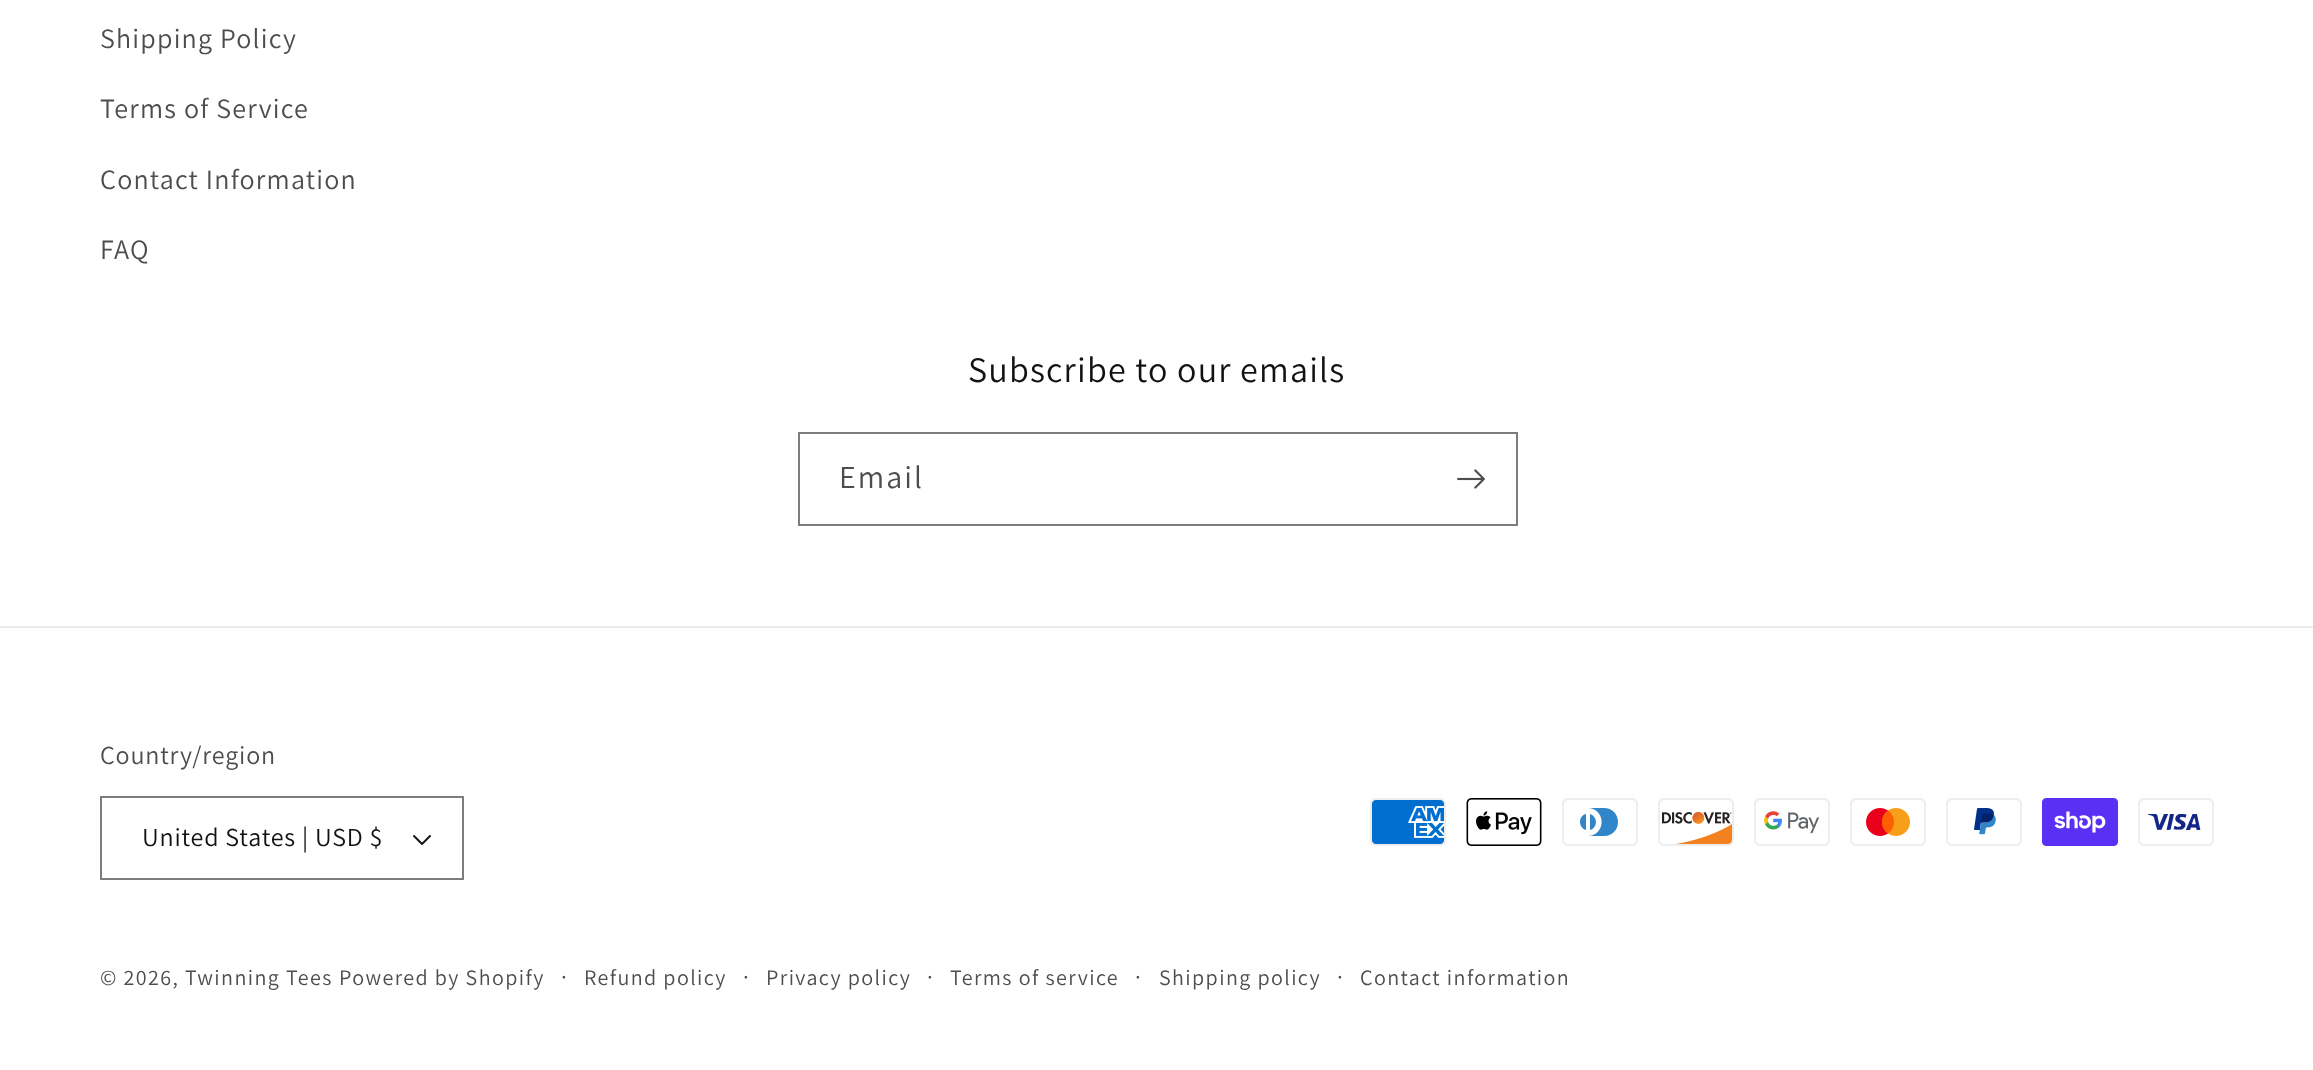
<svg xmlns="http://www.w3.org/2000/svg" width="2313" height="1070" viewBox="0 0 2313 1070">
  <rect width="100%" height="100%" fill="rgb(255,255,255)"/>
  <g font-family="Assistant" font-size="28" letter-spacing="1.2" fill="rgb(77,77,77)">
    <text x="100" y="48">Shipping Policy</text>
    <text x="100" y="118">Terms of Service</text>
    <text x="100" y="189">Contact Information</text>
    <text x="100" y="259">FAQ</text>
  </g>
  <text x="968" y="382" font-family="Assistant" font-size="36" letter-spacing="1.2" fill="rgb(18,18,18)">Subscribe to our emails</text>
  <rect x="799" y="433" width="718" height="92" fill="none" stroke="rgb(125,125,125)" stroke-width="2"/>
  <text x="839" y="488" font-family="Assistant" font-size="32" letter-spacing="2" fill="rgb(77,77,77)">Email</text>
  <image x="1457" y="469" width="28" height="20" href="pic1.png"/>
  <rect x="0" y="626" width="2313" height="2" fill="rgb(236,236,236)"/>
  <text x="100" y="764" font-family="Assistant" font-size="26" letter-spacing="0.8" fill="rgb(77,77,77)">Country/region</text>
  <image x="413" y="835" width="18" height="10" href="pic2.png"/>
  <rect x="101" y="797" width="362" height="82" fill="none" stroke="rgb(125,125,125)" stroke-width="2"/>
  <text x="142" y="846" font-family="Assistant" font-size="26" letter-spacing="0.8" fill="rgb(18,18,18)">United States | USD $</text>
  <image x="1370" y="798" width="76" height="48" href="pic3.png"/>
  <image x="1466" y="798" width="76" height="48" href="pic4.png"/>
  <image x="1562" y="798" width="76" height="48" href="pic5.png"/>
  <image x="1658" y="798" width="76" height="48" href="pic6.png"/>
  <image x="1754" y="798" width="76" height="48" href="pic7.png"/>
  <image x="1850" y="798" width="76" height="48" href="pic8.png"/>
  <image x="1946" y="798" width="76" height="48" href="pic9.png"/>
  <image x="2042" y="798" width="76" height="48" href="pic10.png"/>
  <image x="2138" y="798" width="76" height="48" href="pic11.png"/>
  <g font-family="Assistant" font-size="22" letter-spacing="1.4" fill="rgb(77,77,77)">
    <text x="100" y="985">© 2026, Twinning Tees</text>
    <text x="339" y="985">Powered by Shopify</text>
  </g>
  <text x="561" y="985" font-family="Assistant" font-size="24" letter-spacing="1.4" fill="rgb(77,77,77)">·</text>
  <text x="584" y="985" font-family="Assistant" font-size="22" letter-spacing="1.4" fill="rgb(77,77,77)">Refund policy</text>
  <text x="743" y="985" font-family="Assistant" font-size="24" letter-spacing="1.4" fill="rgb(77,77,77)">·</text>
  <text x="766" y="985" font-family="Assistant" font-size="22" letter-spacing="1.4" fill="rgb(77,77,77)">Privacy policy</text>
  <text x="927" y="985" font-family="Assistant" font-size="24" letter-spacing="1.4" fill="rgb(77,77,77)">·</text>
  <text x="950" y="985" font-family="Assistant" font-size="22" letter-spacing="1.4" fill="rgb(77,77,77)">Terms of service</text>
  <text x="1135" y="985" font-family="Assistant" font-size="24" letter-spacing="1.4" fill="rgb(77,77,77)">·</text>
  <text x="1159" y="985" font-family="Assistant" font-size="22" letter-spacing="1.4" fill="rgb(77,77,77)">Shipping policy</text>
  <text x="1337" y="985" font-family="Assistant" font-size="24" letter-spacing="1.4" fill="rgb(77,77,77)">·</text>
  <text x="1360" y="985" font-family="Assistant" font-size="22" letter-spacing="1.4" fill="rgb(77,77,77)">Contact information</text>
</svg>
